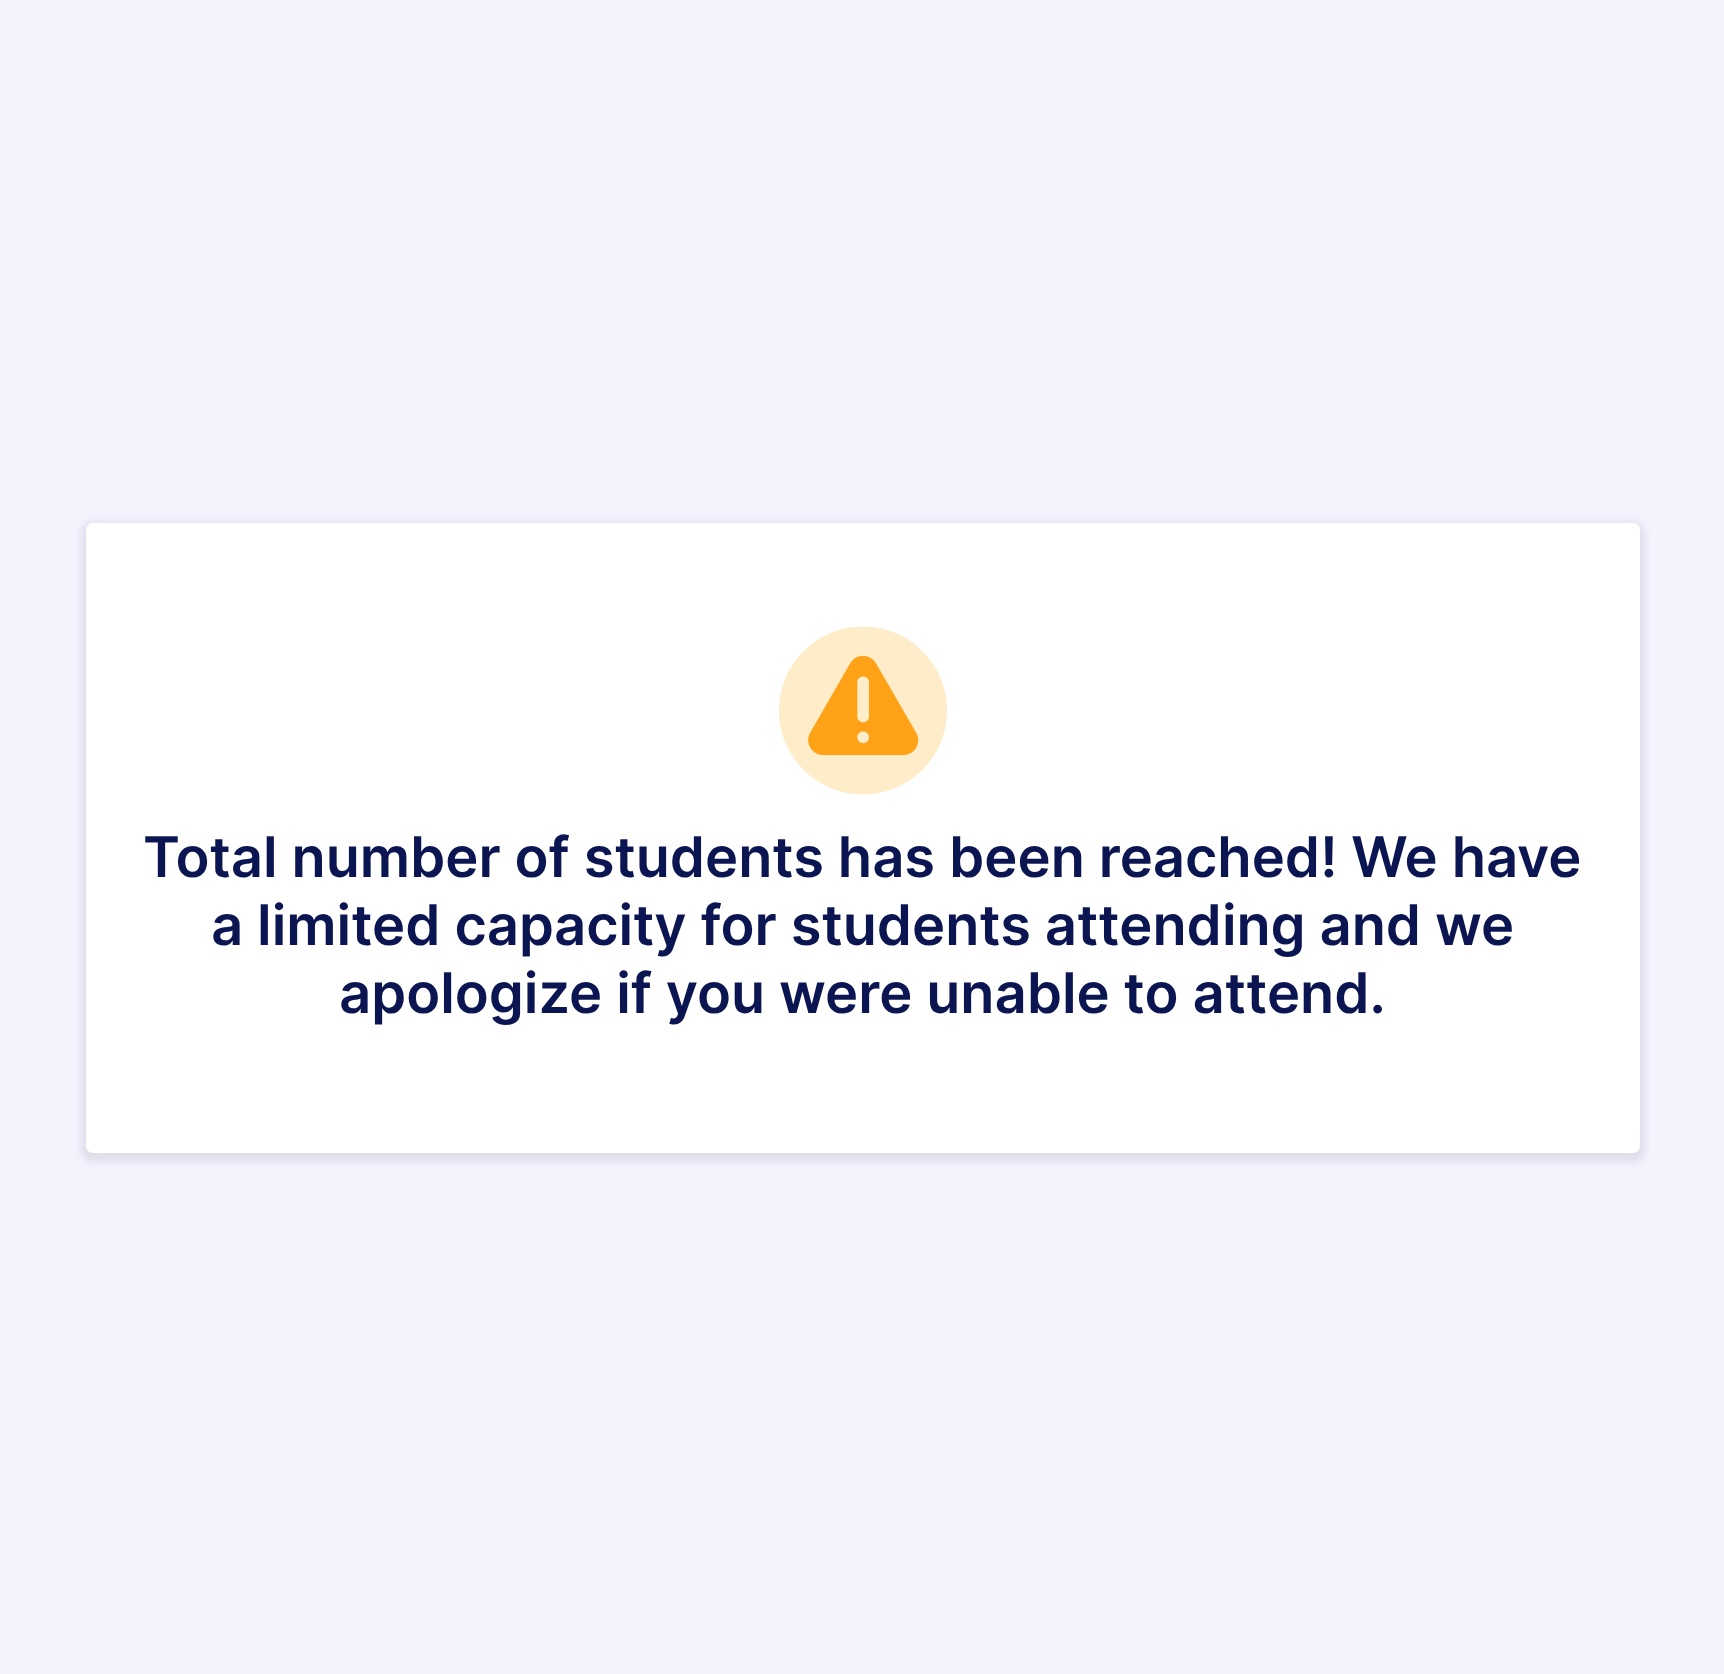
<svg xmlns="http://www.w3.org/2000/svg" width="1724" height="1674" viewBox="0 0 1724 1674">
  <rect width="100%" height="100%" fill="rgb(243,243,254)"/>
  <rect x="81" y="522" width="1564" height="640" rx="12" fill="rgba(181,182,201,0.33)" filter="blur(3.5px)"/>
  <rect x="86" y="523" width="1554" height="630" rx="7" fill="rgb(255,255,255)"/>
  <image x="779" y="627" width="168" height="168" href="pic1.png"/>
  <g font-family="Inter" font-size="56" font-weight="600" fill="rgb(10,21,81)">
    <text x="143" y="877">Total number of students has been reached! We have</text>
    <text x="211" y="945">a limited capacity for students attending and we</text>
    <text x="339" y="1013">apologize if you were unable to attend.</text>
  </g>
</svg>
